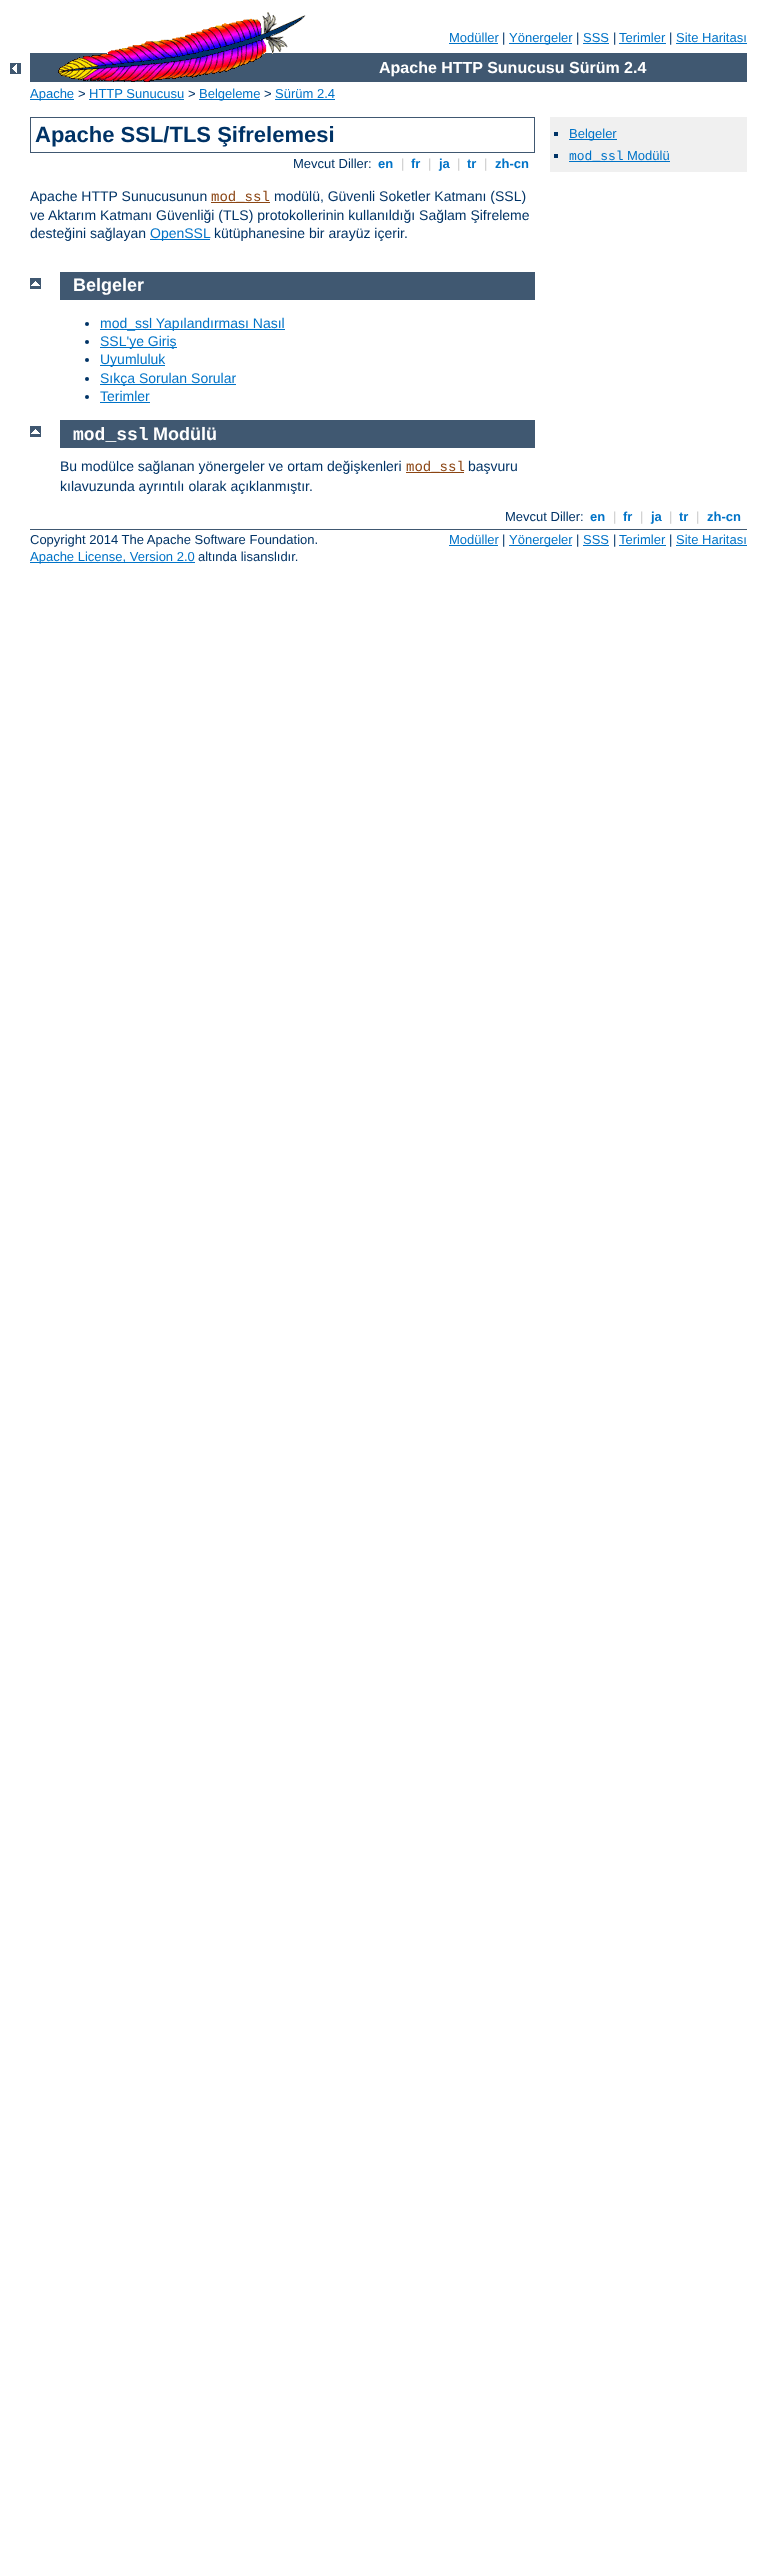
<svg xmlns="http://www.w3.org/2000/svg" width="761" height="2572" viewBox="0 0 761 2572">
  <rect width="100%" height="100%" fill="rgb(255,255,255)"/>
  <image x="10" y="63" width="11" height="11" href="pic1.png"/>
  <rect x="30" y="53" width="717" height="29" fill="rgb(64,88,113)"/>
  <image x="58" y="12" width="248" height="70" href="pic2.png"/>
  <text x="449" y="42" font-family="Liberation Sans" font-size="13" fill="rgb(0,115,199)">Modüller</text>
  <rect x="449" y="43" width="49" height="1" fill="rgb(0,115,199)"/>
  <text x="502" y="42" font-family="Liberation Sans" font-size="13" fill="rgb(0,51,102)">|</text>
  <rect x="509" y="43" width="63" height="1" fill="rgb(0,115,199)"/>
  <text x="509" y="42" font-family="Liberation Sans" font-size="13" fill="rgb(0,115,199)">Yönergeler</text>
  <text x="576" y="42" font-family="Liberation Sans" font-size="13" fill="rgb(0,51,102)">|</text>
  <text x="583" y="42" font-family="Liberation Sans" font-size="13" fill="rgb(0,115,199)">SSS</text>
  <rect x="583" y="43" width="26" height="1" fill="rgb(0,115,199)"/>
  <text x="613" y="42" font-family="Liberation Sans" font-size="13" fill="rgb(0,51,102)">|</text>
  <text x="619" y="42" font-family="Liberation Sans" font-size="13" fill="rgb(0,115,199)">Terimler</text>
  <rect x="619" y="43" width="47" height="1" fill="rgb(0,115,199)"/>
  <text x="669" y="42" font-family="Liberation Sans" font-size="13" fill="rgb(0,51,102)">|</text>
  <text x="676" y="42" font-family="Liberation Sans" font-size="13" fill="rgb(0,115,199)">Site Haritası</text>
  <rect x="676" y="43" width="71" height="1" fill="rgb(0,115,199)"/>
  <text x="379" y="73" font-family="Liberation Sans" font-size="16" font-weight="bold" fill="rgb(255,255,255)">Apache HTTP Sunucusu Sürüm 2.4</text>
  <rect x="30" y="99" width="44" height="1" fill="rgb(0,115,199)"/>
  <text x="30" y="98" font-family="Liberation Sans" font-size="13" fill="rgb(0,115,199)">Apache</text>
  <text x="78" y="98" font-family="Liberation Sans" font-size="13" fill="rgb(0,51,102)">&gt;</text>
  <text x="89" y="98" font-family="Liberation Sans" font-size="13" fill="rgb(0,115,199)">HTTP Sunucusu</text>
  <rect x="89" y="99" width="95" height="1" fill="rgb(0,115,199)"/>
  <text x="188" y="98" font-family="Liberation Sans" font-size="13" fill="rgb(0,51,102)">&gt;</text>
  <rect x="199" y="99" width="61" height="1" fill="rgb(0,115,199)"/>
  <text x="199" y="98" font-family="Liberation Sans" font-size="13" fill="rgb(0,115,199)">Belgeleme</text>
  <text x="264" y="98" font-family="Liberation Sans" font-size="13" fill="rgb(0,51,102)">&gt;</text>
  <text x="275" y="98" font-family="Liberation Sans" font-size="13" fill="rgb(0,115,199)">Sürüm 2.4</text>
  <rect x="275" y="99" width="60" height="1" fill="rgb(0,115,199)"/>
  <rect x="30.5" y="117.5" width="504" height="35" fill="none" stroke="rgb(64,88,113)"/>
  <text x="35" y="142" font-family="Liberation Sans" font-size="22" font-weight="bold" fill="rgb(0,51,102)">Apache SSL/TLS Şifrelemesi</text>
  <text x="293" y="168" font-family="Liberation Sans" font-size="13" fill="rgb(0,51,102)">Mevcut Diller:</text>
  <text x="378" y="168" font-family="Liberation Sans" font-size="13" font-weight="bold" fill="rgb(0,115,199)">en</text>
  <text x="401" y="168" font-family="Liberation Sans" font-size="13" fill="rgb(204,204,204)">|</text>
  <text x="411" y="168" font-family="Liberation Sans" font-size="13" font-weight="bold" fill="rgb(0,115,199)">fr</text>
  <text x="428" y="168" font-family="Liberation Sans" font-size="13" fill="rgb(204,204,204)">|</text>
  <text x="439" y="168" font-family="Liberation Sans" font-size="13" font-weight="bold" fill="rgb(0,115,199)">ja</text>
  <text x="457" y="168" font-family="Liberation Sans" font-size="13" fill="rgb(204,204,204)">|</text>
  <text x="467" y="168" font-family="Liberation Sans" font-size="13" font-weight="bold" fill="rgb(0,115,199)">tr</text>
  <text x="484" y="168" font-family="Liberation Sans" font-size="13" fill="rgb(204,204,204)">|</text>
  <text x="495" y="168" font-family="Liberation Sans" font-size="13" font-weight="bold" fill="rgb(0,115,199)">zh-cn</text>
  <text x="30" y="201" font-family="Liberation Sans" font-size="14" fill="rgb(0,51,102)">Apache HTTP Sunucusunun</text>
  <rect x="211" y="202" width="59" height="1" fill="rgb(139,69,19)"/>
  <text x="211" y="201" font-family="Liberation Mono" font-size="14" fill="rgb(139,69,19)">mod_ssl</text>
  <g font-family="Liberation Sans" font-size="14" fill="rgb(0,51,102)">
    <text x="274" y="201">modülü, Güvenli Soketler Katmanı (SSL)</text>
    <text>
      <tspan x="30" y="220">ve Aktarım Katmanı Güvenliği (TLS) protokollerinin kullanıldığı Sağlam Şifreleme</tspan>
      <tspan x="30" y="238">desteğini sağlayan</tspan>
    </text>
  </g>
  <rect x="150" y="239" width="60" height="1" fill="rgb(0,115,199)"/>
  <text x="150" y="238" font-family="Liberation Sans" font-size="14" fill="rgb(0,115,199)">OpenSSL</text>
  <text x="214" y="238" font-family="Liberation Sans" font-size="14" fill="rgb(0,51,102)">kütüphanesine bir arayüz içerir.</text>
  <rect x="550" y="117" width="197" height="55" fill="rgb(240,240,240)"/>
  <rect x="554" y="132" width="4" height="4" fill="rgb(0,51,102)"/>
  <rect x="569" y="139" width="48" height="1" fill="rgb(0,115,199)"/>
  <text x="569" y="138" font-family="Liberation Sans" font-size="13" fill="rgb(0,115,199)">Belgeler</text>
  <rect x="554" y="154" width="4" height="4" fill="rgb(0,51,102)"/>
  <rect x="569" y="161" width="101" height="1" fill="rgb(0,115,199)"/>
  <text x="569" y="160" font-family="Liberation Mono" font-size="13" fill="rgb(0,115,199)">mod_ssl</text>
  <text x="627" y="160" font-family="Liberation Sans" font-size="13" fill="rgb(0,115,199)">Modülü</text>
  <image x="30" y="278" width="11" height="11" href="pic3.png"/>
  <rect x="60" y="272" width="475" height="28" fill="rgb(64,88,113)"/>
  <text x="73" y="291" font-family="Liberation Sans" font-size="18" font-weight="bold" fill="rgb(255,255,255)">Belgeler</text>
  <circle cx="87" cy="324" r="2" fill="rgb(0,51,102)"/>
  <rect x="100" y="329" width="185" height="1" fill="rgb(0,115,199)"/>
  <text x="100" y="328" font-family="Liberation Sans" font-size="14" fill="rgb(0,115,199)">mod_ssl Yapılandırması Nasıl</text>
  <circle cx="87" cy="342" r="2" fill="rgb(0,51,102)"/>
  <rect x="100" y="347" width="77" height="1" fill="rgb(0,115,199)"/>
  <text x="100" y="346" font-family="Liberation Sans" font-size="14" fill="rgb(0,115,199)">SSL'ye Giriş</text>
  <circle cx="87" cy="360" r="2" fill="rgb(0,51,102)"/>
  <rect x="100" y="365" width="65" height="1" fill="rgb(0,115,199)"/>
  <text x="100" y="364" font-family="Liberation Sans" font-size="14" fill="rgb(0,115,199)">Uyumluluk</text>
  <circle cx="87" cy="379" r="2" fill="rgb(0,51,102)"/>
  <rect x="100" y="384" width="136" height="1" fill="rgb(0,115,199)"/>
  <text x="100" y="383" font-family="Liberation Sans" font-size="14" fill="rgb(0,115,199)">Sıkça Sorulan Sorular</text>
  <circle cx="87" cy="397" r="2" fill="rgb(0,51,102)"/>
  <text x="100" y="401" font-family="Liberation Sans" font-size="14" fill="rgb(0,115,199)">Terimler</text>
  <rect x="100" y="402" width="50" height="1" fill="rgb(0,115,199)"/>
  <image x="30" y="426" width="11" height="11" href="pic3.png"/>
  <rect x="60" y="420" width="475" height="28" fill="rgb(64,88,113)"/>
  <text x="73" y="440" font-family="Liberation Mono" font-size="18" font-weight="bold" fill="rgb(255,255,255)">mod_ssl</text>
  <text x="153" y="440" font-family="Liberation Sans" font-size="18" font-weight="bold" fill="rgb(255,255,255)">Modülü</text>
  <text x="60" y="471" font-family="Liberation Sans" font-size="14" fill="rgb(0,51,102)">Bu modülce sağlanan yönergeler ve ortam değişkenleri</text>
  <rect x="406" y="472" width="58" height="1" fill="rgb(139,69,19)"/>
  <text x="406" y="471" font-family="Liberation Mono" font-size="14" fill="rgb(139,69,19)">mod_ssl</text>
  <g font-family="Liberation Sans" font-size="14" fill="rgb(0,51,102)">
    <text x="468" y="471">başvuru</text>
    <text x="60" y="491">kılavuzunda ayrıntılı olarak açıklanmıştır.</text>
  </g>
  <text x="505" y="521" font-family="Liberation Sans" font-size="13" fill="rgb(0,51,102)">Mevcut Diller:</text>
  <text x="590" y="521" font-family="Liberation Sans" font-size="13" font-weight="bold" fill="rgb(0,115,199)">en</text>
  <text x="613" y="521" font-family="Liberation Sans" font-size="13" fill="rgb(204,204,204)">|</text>
  <text x="623" y="521" font-family="Liberation Sans" font-size="13" font-weight="bold" fill="rgb(0,115,199)">fr</text>
  <text x="640" y="521" font-family="Liberation Sans" font-size="13" fill="rgb(204,204,204)">|</text>
  <text x="651" y="521" font-family="Liberation Sans" font-size="13" font-weight="bold" fill="rgb(0,115,199)">ja</text>
  <text x="669" y="521" font-family="Liberation Sans" font-size="13" fill="rgb(204,204,204)">|</text>
  <text x="679" y="521" font-family="Liberation Sans" font-size="13" font-weight="bold" fill="rgb(0,115,199)">tr</text>
  <text x="696" y="521" font-family="Liberation Sans" font-size="13" fill="rgb(204,204,204)">|</text>
  <text x="707" y="521" font-family="Liberation Sans" font-size="13" font-weight="bold" fill="rgb(0,115,199)">zh-cn</text>
  <rect x="30" y="529" width="717" height="1" fill="rgb(64,88,113)"/>
  <text x="30" y="544" font-family="Liberation Sans" font-size="13" fill="rgb(0,51,102)">Copyright 2014 The Apache Software Foundation.</text>
  <rect x="30" y="562" width="165" height="1" fill="rgb(0,115,199)"/>
  <text x="30" y="561" font-family="Liberation Sans" font-size="13" fill="rgb(0,115,199)">Apache License, Version 2.0</text>
  <text x="198" y="561" font-family="Liberation Sans" font-size="13" fill="rgb(0,51,102)">altında lisanslıdır.</text>
  <text x="449" y="544" font-family="Liberation Sans" font-size="13" fill="rgb(0,115,199)">Modüller</text>
  <rect x="449" y="545" width="49" height="1" fill="rgb(0,115,199)"/>
  <text x="502" y="544" font-family="Liberation Sans" font-size="13" fill="rgb(0,51,102)">|</text>
  <rect x="509" y="545" width="63" height="1" fill="rgb(0,115,199)"/>
  <text x="509" y="544" font-family="Liberation Sans" font-size="13" fill="rgb(0,115,199)">Yönergeler</text>
  <text x="576" y="544" font-family="Liberation Sans" font-size="13" fill="rgb(0,51,102)">|</text>
  <text x="583" y="544" font-family="Liberation Sans" font-size="13" fill="rgb(0,115,199)">SSS</text>
  <rect x="583" y="545" width="26" height="1" fill="rgb(0,115,199)"/>
  <text x="613" y="544" font-family="Liberation Sans" font-size="13" fill="rgb(0,51,102)">|</text>
  <text x="619" y="544" font-family="Liberation Sans" font-size="13" fill="rgb(0,115,199)">Terimler</text>
  <rect x="619" y="545" width="47" height="1" fill="rgb(0,115,199)"/>
  <text x="669" y="544" font-family="Liberation Sans" font-size="13" fill="rgb(0,51,102)">|</text>
  <text x="676" y="544" font-family="Liberation Sans" font-size="13" fill="rgb(0,115,199)">Site Haritası</text>
  <rect x="676" y="545" width="71" height="1" fill="rgb(0,115,199)"/>
</svg>
